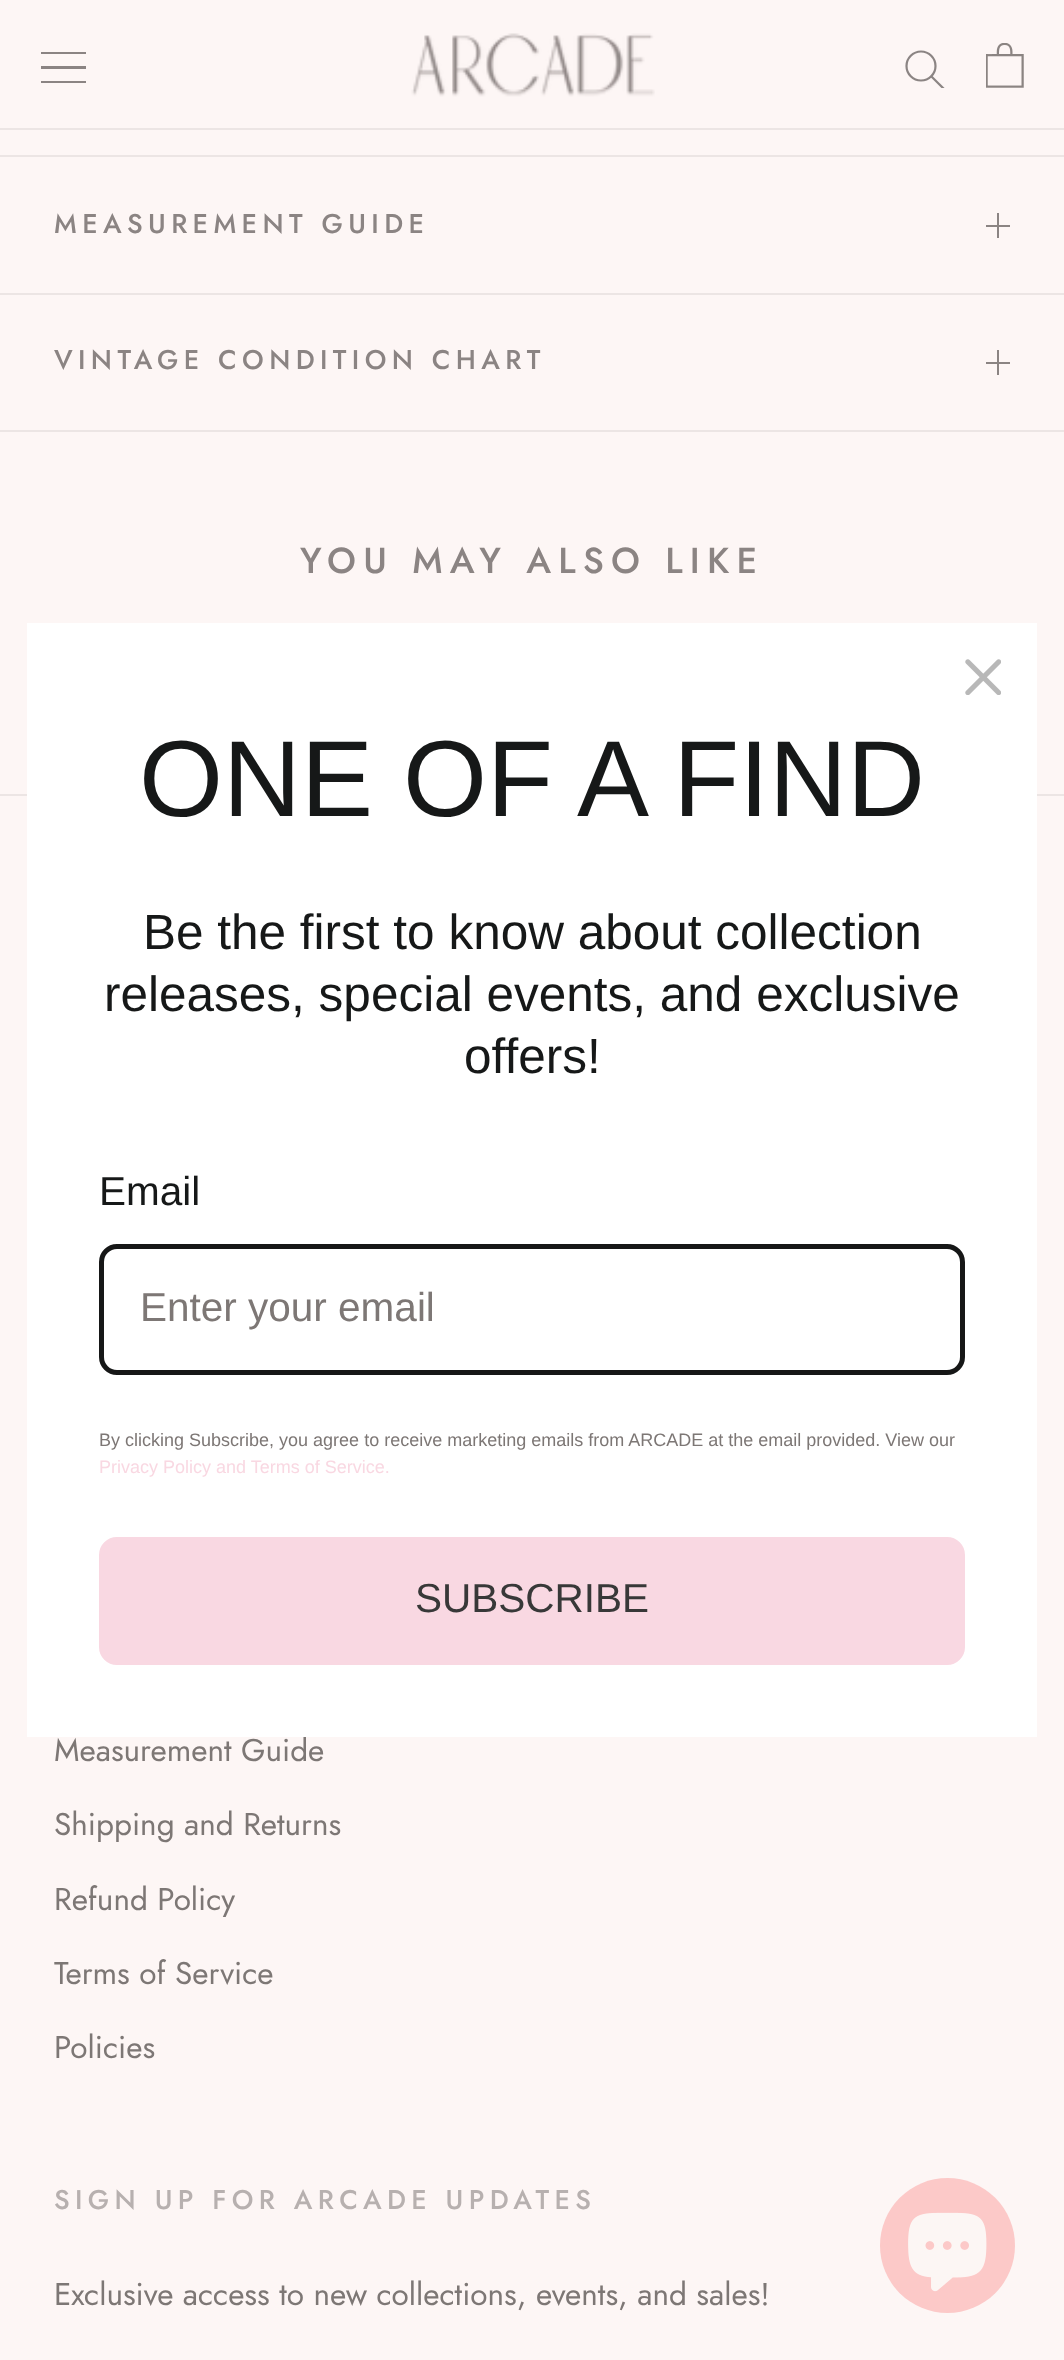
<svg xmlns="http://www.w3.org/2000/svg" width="1064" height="2360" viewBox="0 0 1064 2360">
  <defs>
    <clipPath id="clip1"><rect x="41" y="52" width="45" height="31"/></clipPath>
    <clipPath id="clip2"><rect x="905" y="50" width="40" height="38"/></clipPath>
  </defs>
  <rect width="100%" height="100%" fill="rgb(253,246,245)"/>
  <rect x="0" y="128" width="1064" height="2" fill="rgb(236,229,228)"/>
  <g clip-path="url(#clip1)">
    <path d="M40 83V81H86V83ZM40 66H86V69H40ZM40 52H86V54H40Z" fill="rgb(139,132,131)"/>
  </g>
  <image x="411" y="33" width="244" height="64" href="pic1.png"/>
  <g clip-path="url(#clip2)">
    <path d="M943 88L931.5 76.5" fill="none" stroke="rgb(139,132,131)" stroke-width="2.2" stroke-linecap="square"/>
  </g>
  <circle cx="921" cy="66" r="14.5" fill="none" stroke="rgb(139,132,131)" stroke-width="2.2"/>
  <image x="986" y="43" width="38" height="45" href="pic2.png"/>
  <rect x="0" y="155" width="1064" height="2" fill="rgb(236,229,228)"/>
  <rect x="0" y="293" width="1064" height="2" fill="rgb(236,229,228)"/>
  <text x="54" y="233" font-family="Jost" font-size="27" font-weight="500" letter-spacing="5.4" fill="rgb(139,132,131)">MEASUREMENT GUIDE</text>
  <rect x="997" y="213" width="2" height="25" fill="rgb(139,132,131)"/>
  <rect x="986" y="225" width="24" height="2" fill="rgb(139,132,131)"/>
  <rect x="0" y="430" width="1064" height="2" fill="rgb(236,229,228)"/>
  <text x="54" y="369" font-family="Jost" font-size="27" font-weight="500" letter-spacing="5.4" fill="rgb(139,132,131)">VINTAGE CONDITION CHART</text>
  <rect x="997" y="350" width="2" height="25" fill="rgb(139,132,131)"/>
  <rect x="986" y="362" width="24" height="2" fill="rgb(139,132,131)"/>
  <text x="300" y="573" font-family="Jost" font-size="36" font-weight="500" letter-spacing="7.25" fill="rgb(139,132,131)">YOU MAY ALSO LIKE</text>
  <rect x="0" y="794" width="1064" height="2" fill="rgb(236,229,228)"/>
  <g font-family="Jost" font-size="31.5" fill="rgb(125,119,117)">
    <text x="54" y="1761">Measurement Guide</text>
    <text x="54" y="1835">Shipping and Returns</text>
    <text x="54" y="1910">Refund Policy</text>
    <text x="54" y="1984">Terms of Service</text>
    <text x="54" y="2058">Policies</text>
  </g>
  <text x="54" y="2209" font-family="Jost" font-size="27" font-weight="500" letter-spacing="5.4" fill="rgb(183,176,175)">SIGN UP FOR ARCADE UPDATES</text>
  <text x="54" y="2305" font-family="Jost" font-size="31.5" fill="rgb(125,119,117)">Exclusive access to new collections, events, and sales!</text>
  <rect x="27" y="623" width="1010" height="1114" fill="rgb(255,255,255)"/>
  <image x="965" y="659" width="36" height="36" href="pic3.png"/>
  <text x="139" y="816" font-family="Liberation Sans" font-size="108" fill="rgb(22,24,24)">ONE OF A FIND</text>
  <g font-family="Liberation Sans" font-size="49.5" fill="rgb(22,24,24)">
    <text x="143" y="949">Be the first to know about collection</text>
    <text x="104" y="1011">releases, special events, and exclusive</text>
    <text x="464" y="1073">offers!</text>
  </g>
  <text x="99" y="1205" font-family="Liberation Sans" font-size="40.5" fill="rgb(22,24,24)">Email</text>
  <rect x="101.5" y="1246.5" width="861" height="126" rx="15.5" fill="none" stroke="rgb(22,23,23)" stroke-width="5"/>
  <text x="140" y="1321" font-family="Liberation Sans" font-size="40.5" fill="rgb(125,119,117)">Enter your email</text>
  <text x="99" y="1446" font-family="Liberation Sans" font-size="18" fill="rgb(125,119,117)">By clicking Subscribe, you agree to receive marketing emails from ARCADE at the email provided. View our</text>
  <text x="99" y="1473" font-family="Liberation Sans" font-size="18" fill="rgb(249,216,226)">Privacy Policy and Terms of Service.</text>
  <rect x="101.5" y="1539.5" width="861" height="123" rx="15.5" fill="rgb(249,216,226)" stroke="rgb(249,216,226)" stroke-width="5"/>
  <text x="415" y="1612" font-family="Liberation Sans" font-size="40.5" fill="rgb(56,56,56)">SUBSCRIBE</text>
  <circle cx="947.5" cy="2245.5" r="67.5" fill="rgb(252,201,200)"/>
  <image x="908" y="2212" width="79" height="80" href="pic4.png"/>
</svg>
